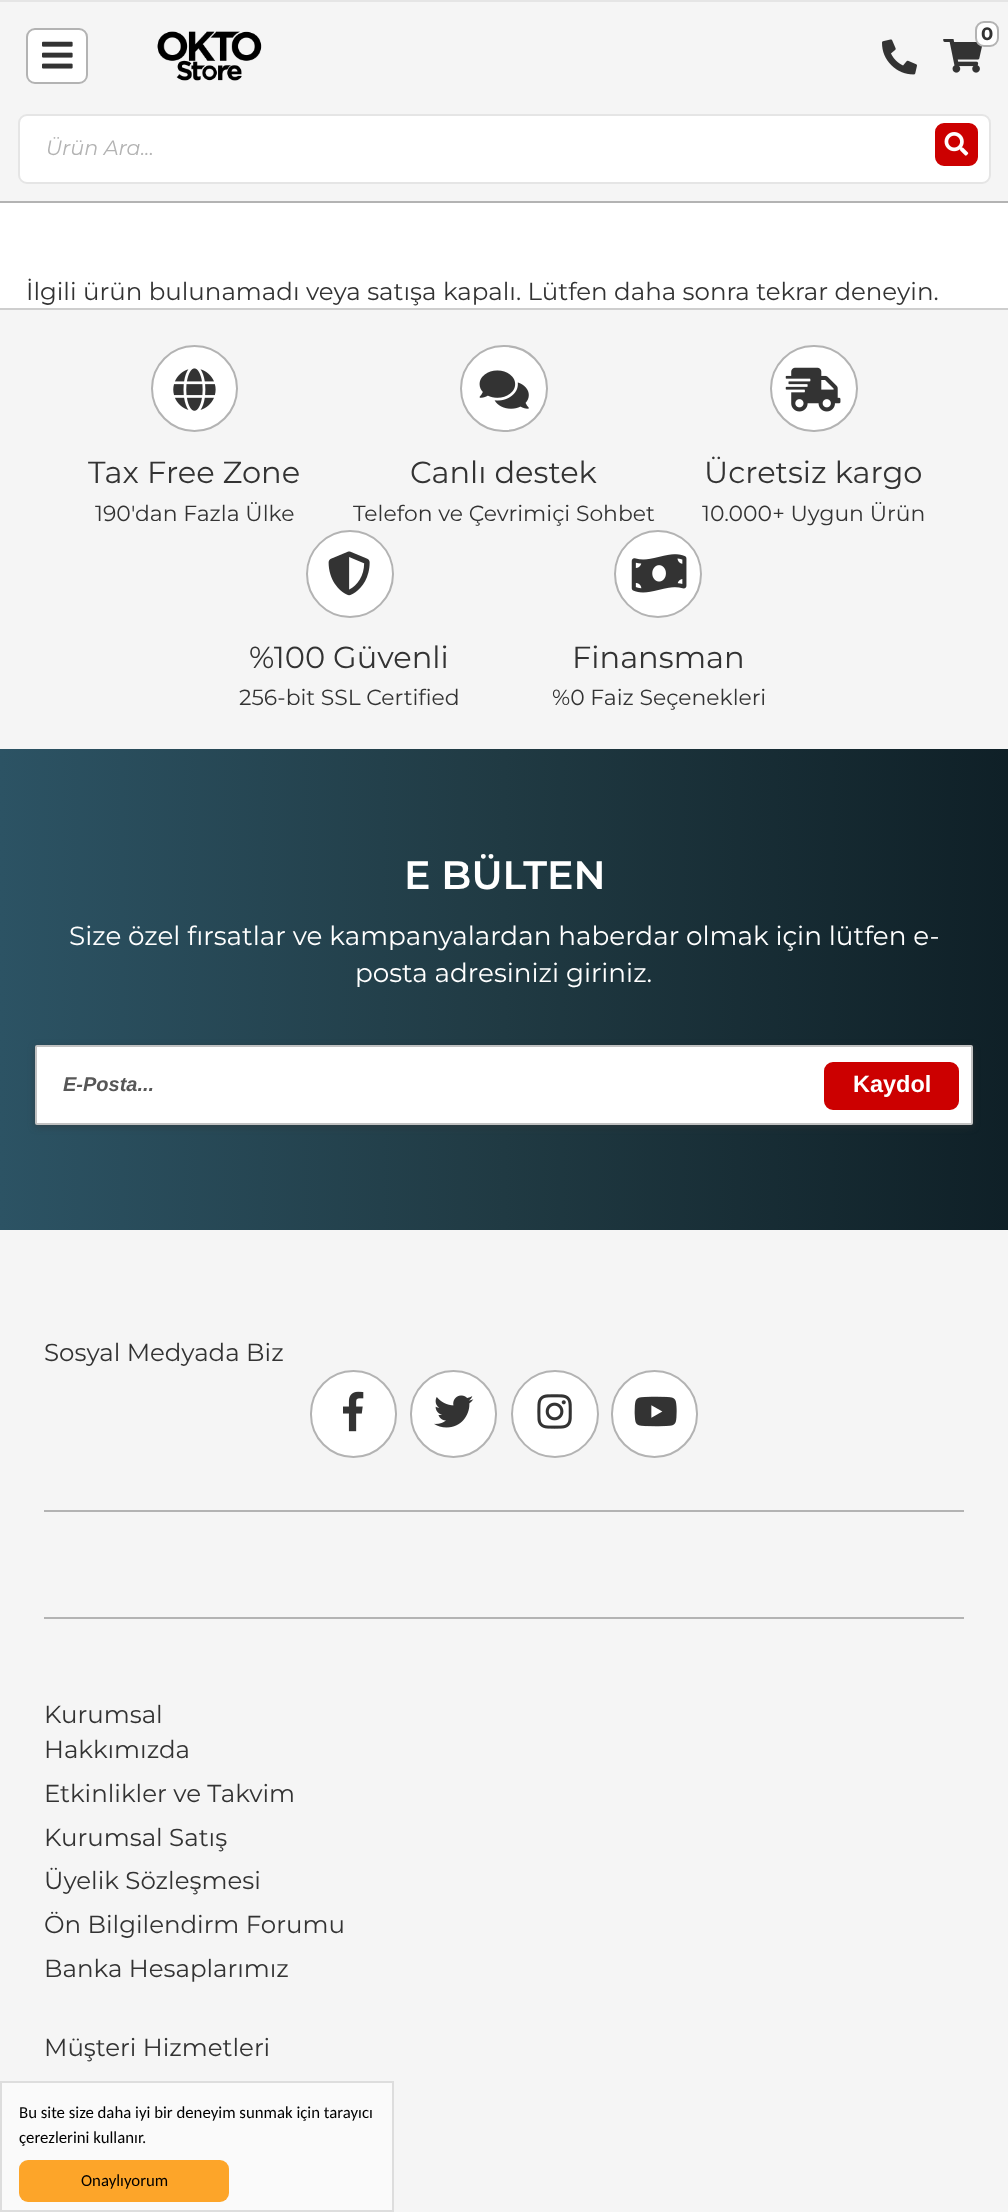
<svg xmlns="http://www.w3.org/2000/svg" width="1008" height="2212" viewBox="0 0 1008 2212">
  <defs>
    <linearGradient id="g1" gradientUnits="userSpaceOnUse" x1="0" y1="990" x2="1008" y2="990"><stop offset="0" stop-color="rgb(44,83,100)"/><stop offset="0.5" stop-color="rgb(32,58,67)"/><stop offset="1" stop-color="rgb(15,32,39)"/></linearGradient>
  </defs>
  <rect width="100%" height="100%" fill="rgb(255,255,255)"/>
  <rect x="0" y="2" width="1008" height="199" fill="rgb(245,245,245)"/>
  <rect x="0" y="201" width="1008" height="2" fill="rgb(179,179,179)"/>
  <rect x="0" y="0" width="1008" height="2" fill="rgb(229,229,229)"/>
  <rect x="27" y="29" width="60" height="54" rx="8" fill="rgb(255,255,255)" stroke="rgb(179,179,179)" stroke-width="2"/>
  <image x="42" y="41" width="31" height="28" href="pic1.png"/>
  <image x="157" y="31" width="105" height="50" href="pic2.png"/>
  <image x="882" y="39" width="35" height="36" href="pic3.png"/>
  <image x="943" y="39" width="39" height="34" href="pic4.png"/>
  <rect x="976" y="22" width="22" height="24" rx="8" fill="rgb(255,255,255)" stroke="rgb(179,179,179)" stroke-width="2"/>
  <text x="981" y="40" font-family="Montserrat" font-size="18" font-weight="bold" fill="rgb(51,51,51)">0</text>
  <rect x="19" y="115" width="971" height="68" rx="8" fill="rgb(255,255,255)" stroke="rgb(229,229,229)" stroke-width="2"/>
  <text x="46" y="155" font-family="Montserrat" font-size="20.75" font-style="italic" fill="rgb(179,179,179)">Ürün Ara...</text>
  <rect x="936" y="124" width="41" height="41" rx="8" fill="rgb(204,0,0)" stroke="rgb(204,0,0)" stroke-width="2"/>
  <image x="944" y="132" width="25" height="24" href="pic5.png"/>
  <text x="26" y="300" font-family="Montserrat" font-size="24.5" fill="rgb(51,51,51)">İlgili ürün bulunamadı veya satışa kapalı. Lütfen daha sonra tekrar deneyin.</text>
  <rect x="0" y="310" width="1008" height="1902" fill="rgb(245,245,245)"/>
  <rect x="0" y="308" width="1008" height="2" fill="rgb(206,206,206)"/>
  <circle cx="194.5" cy="388.5" r="42.5" fill="rgb(255,255,255)" stroke="rgb(179,179,179)" stroke-width="2"/>
  <image x="173" y="368" width="43" height="43" href="pic6.png"/>
  <text x="88" y="483" font-family="Montserrat" font-size="30.5" fill="rgb(51,51,51)">Tax Free Zone</text>
  <text x="95" y="521" font-family="Montserrat" font-size="21.9" fill="rgb(51,51,51)">190'dan Fazla Ülke</text>
  <rect x="461" y="346" width="86" height="85" rx="42.5" fill="rgb(255,255,255)" stroke="rgb(179,179,179)" stroke-width="2"/>
  <image x="479" y="370" width="50" height="39" href="pic7.png"/>
  <text x="410" y="483" font-family="Montserrat" font-size="30.5" fill="rgb(51,51,51)">Canlı destek</text>
  <text x="353" y="521" font-family="Montserrat" font-size="21.9" fill="rgb(51,51,51)">Telefon ve Çevrimiçi Sohbet</text>
  <rect x="771" y="346" width="86" height="85" rx="42.5" fill="rgb(255,255,255)" stroke="rgb(179,179,179)" stroke-width="2"/>
  <image x="785" y="367" width="56" height="45" href="pic8.png"/>
  <text x="704" y="483" font-family="Montserrat" font-size="30.5" fill="rgb(51,51,51)">Ücretsiz kargo</text>
  <text x="702" y="521" font-family="Montserrat" font-size="21.9" fill="rgb(51,51,51)">10.000+ Uygun Ürün</text>
  <circle cx="350" cy="574" r="43" fill="rgb(255,255,255)" stroke="rgb(179,179,179)" stroke-width="2"/>
  <image x="328" y="551" width="42" height="45" href="pic9.png"/>
  <text x="249" y="668" font-family="Montserrat" font-size="30.5" fill="rgb(51,51,51)">%100 Güvenli</text>
  <text x="239" y="705" font-family="Montserrat" font-size="21.9" fill="rgb(51,51,51)">256-bit SSL Certified</text>
  <circle cx="658" cy="574" r="43" fill="rgb(255,255,255)" stroke="rgb(179,179,179)" stroke-width="2"/>
  <image x="631" y="554" width="56" height="39" href="pic10.png"/>
  <text x="572" y="668" font-family="Montserrat" font-size="30.5" fill="rgb(51,51,51)">Finansman</text>
  <text x="552" y="705" font-family="Montserrat" font-size="21.9" fill="rgb(51,51,51)">%0 Faiz Seçenekleri</text>
  <rect x="0" y="749" width="1008" height="481" fill="url(#g1)"/>
  <text x="404" y="889" font-family="Montserrat" font-size="39.5" font-weight="600" fill="rgb(255,255,255)">E BÜLTEN</text>
  <g font-family="Montserrat" font-size="26.25" fill="rgb(255,255,255)">
    <text x="69" y="945">Size özel fırsatlar ve kampanyalardan haberdar olmak için lütfen e-</text>
    <text x="355" y="982">posta adresinizi giriniz.</text>
  </g>
  <rect x="35" y="1047" width="938" height="80" rx="2" fill="rgba(51,51,51,0.5)" filter="blur(3.5px)"/>
  <rect x="36" y="1046" width="936" height="78" rx="1" fill="rgb(255,255,255)" stroke="rgb(194,194,194)" stroke-width="2"/>
  <text x="63" y="1091" font-family="Liberation Sans" font-size="20" font-weight="bold" font-style="italic" fill="rgb(87,87,87)">E-Posta...</text>
  <rect x="825" y="1063" width="133" height="46" rx="8" fill="rgb(204,0,0)" stroke="rgb(204,0,0)" stroke-width="2"/>
  <text x="853" y="1092" font-family="Liberation Sans" font-size="23.5" font-weight="bold" fill="rgb(255,255,255)">Kaydol</text>
  <rect x="44" y="1510" width="920" height="2" fill="rgb(179,179,179)"/>
  <text x="44" y="1361" font-family="Montserrat" font-size="24.5" fill="rgb(51,51,51)">Sosyal Medyada Biz</text>
  <rect x="311" y="1371" width="85" height="86" rx="42.5" fill="rgb(255,255,255)" stroke="rgb(179,179,179)" stroke-width="2"/>
  <image x="343" y="1391" width="21" height="41" href="pic11.png"/>
  <rect x="411" y="1371" width="85" height="86" rx="42.5" fill="rgb(255,255,255)" stroke="rgb(179,179,179)" stroke-width="2"/>
  <image x="434" y="1395" width="40" height="33" href="pic12.png"/>
  <circle cx="555" cy="1414" r="43" fill="rgb(255,255,255)" stroke="rgb(179,179,179)" stroke-width="2"/>
  <image x="537" y="1394" width="35" height="35" href="pic13.png"/>
  <rect x="612" y="1371" width="85" height="86" rx="42.5" fill="rgb(255,255,255)" stroke="rgb(179,179,179)" stroke-width="2"/>
  <image x="634" y="1396" width="43" height="31" href="pic14.png"/>
  <rect x="44" y="1617" width="920" height="2" fill="rgb(179,179,179)"/>
  <g font-family="Montserrat" font-size="24.5" fill="rgb(51,51,51)">
    <text>
      <tspan x="44" y="1723">Kurumsal</tspan>
      <tspan x="44" y="1758">Hakkımızda</tspan>
      <tspan x="44" y="1802">Etkinlikler ve Takvim</tspan>
      <tspan x="44" y="1846">Kurumsal Satış</tspan>
      <tspan x="44" y="1889">Üyelik Sözleşmesi</tspan>
      <tspan x="44" y="1933">Ön Bilgilendirm Forumu</tspan>
      <tspan x="44" y="1977">Banka Hesaplarımız</tspan>
    </text>
    <text x="44" y="2056">Müşteri Hizmetleri</text>
  </g>
  <rect x="1" y="2082" width="392" height="129" fill="rgb(250,250,250)" stroke="rgb(221,221,221)" stroke-width="2"/>
  <g font-family="Carlito" font-size="16.8" fill="rgb(0,0,0)">
    <text>
      <tspan x="19" y="2118">Bu site size daha iyi bir deneyim sunmak için tarayıcı</tspan>
      <tspan x="19" y="2143">çerezlerini kullanır.</tspan>
    </text>
  </g>
  <rect x="19" y="2160" width="210" height="42" rx="9" fill="rgb(253,165,41)"/>
  <text x="81" y="2186" font-family="Carlito" font-size="16.8" fill="rgb(0,0,0)">Onaylıyorum</text>
</svg>
